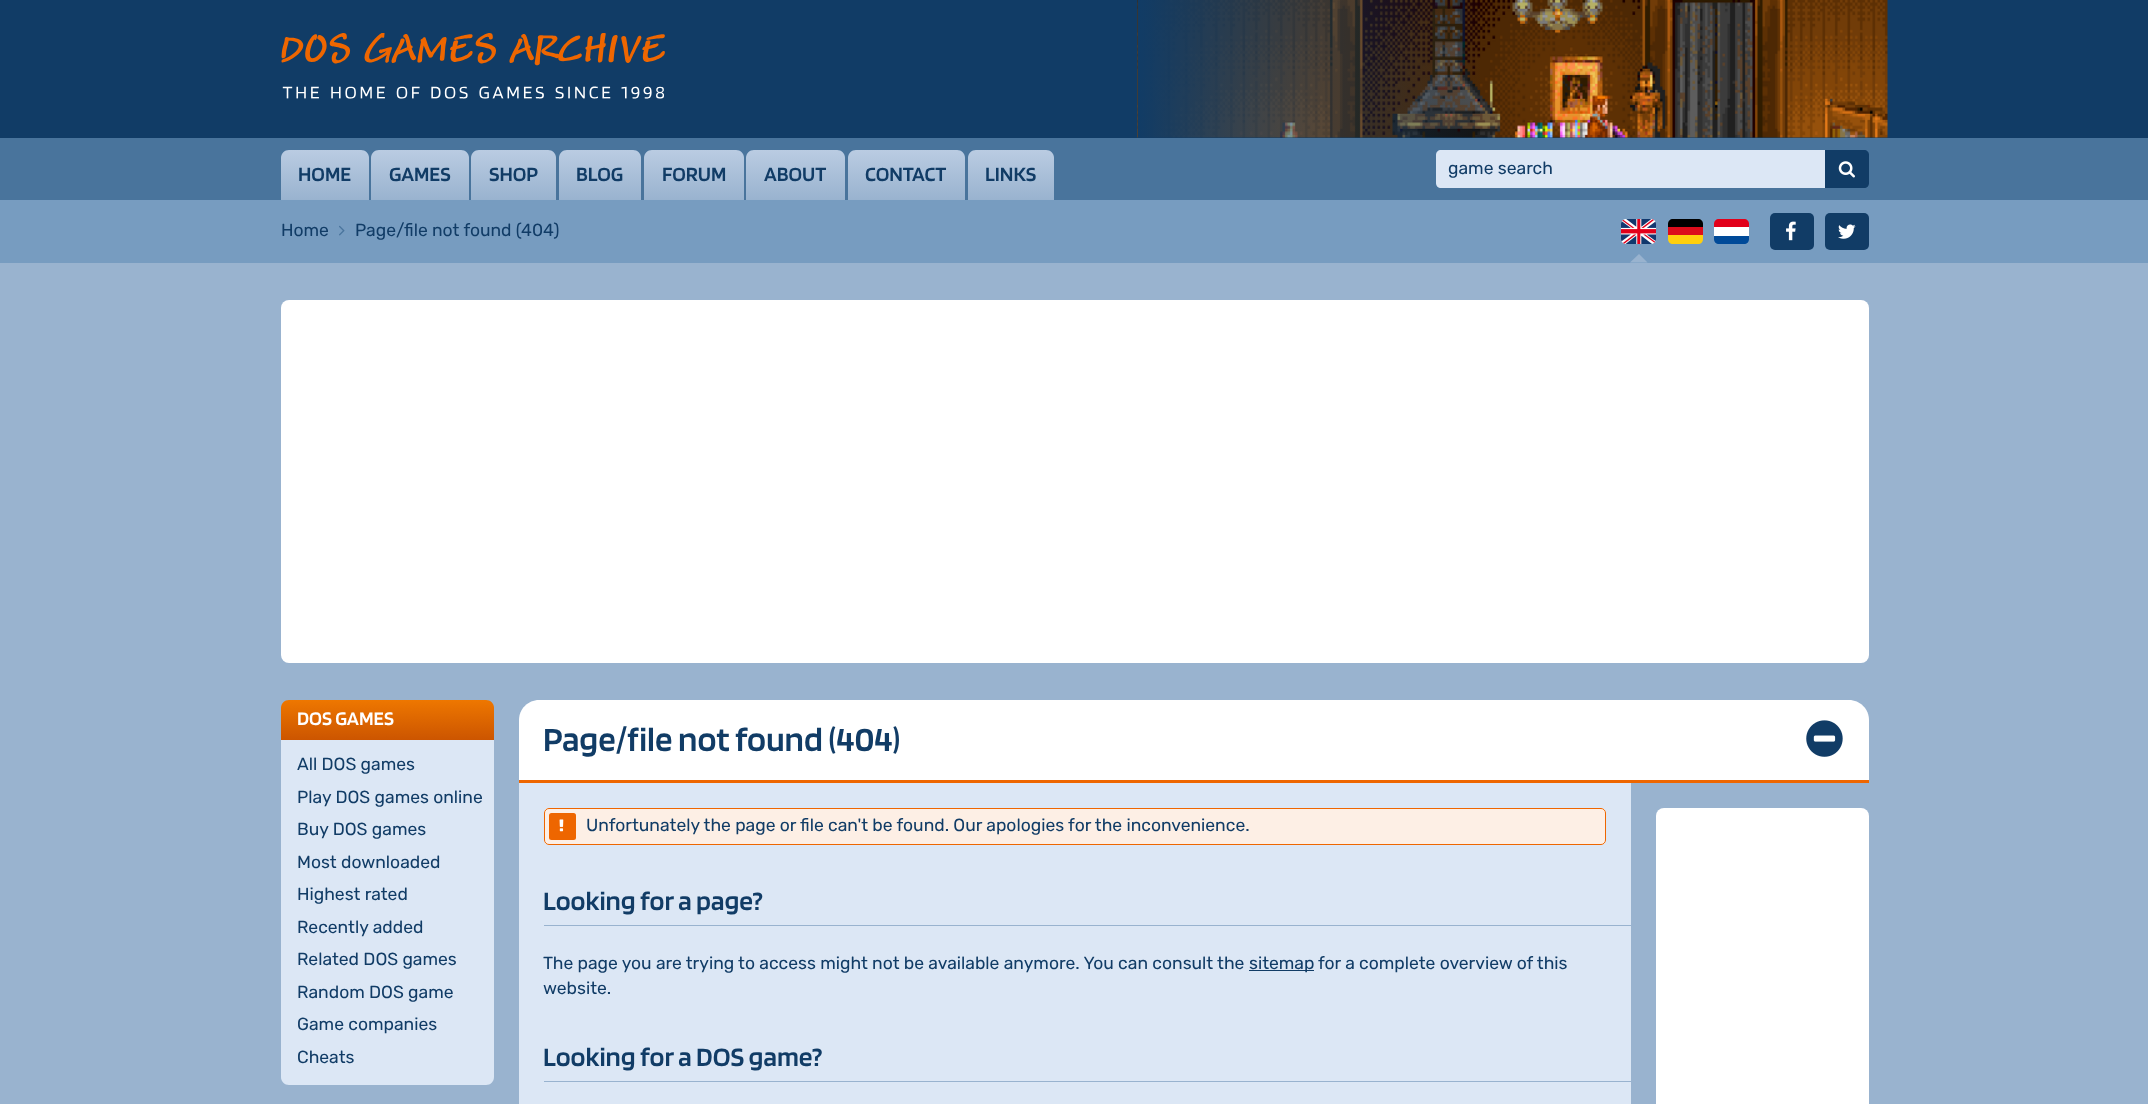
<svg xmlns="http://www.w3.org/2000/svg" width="2148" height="1104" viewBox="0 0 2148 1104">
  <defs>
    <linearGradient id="g1" gradientUnits="userSpaceOnUse" x1="1138" y1="69" x2="1488" y2="69"><stop offset="0" stop-color="rgb(17,60,102)"/><stop offset="1" stop-color="rgb(17,60,102)" stop-opacity="0"/></linearGradient>
    <linearGradient id="g2" gradientUnits="userSpaceOnUse" x1="325" y1="150" x2="325" y2="200"><stop offset="0" stop-color="rgb(186,204,226)"/><stop offset="1" stop-color="rgb(153,179,207)"/></linearGradient>
    <linearGradient id="g3" gradientUnits="userSpaceOnUse" x1="420" y1="150" x2="420" y2="200"><stop offset="0" stop-color="rgb(186,204,226)"/><stop offset="1" stop-color="rgb(153,179,207)"/></linearGradient>
    <linearGradient id="g4" gradientUnits="userSpaceOnUse" x1="514" y1="150" x2="514" y2="200"><stop offset="0" stop-color="rgb(186,204,226)"/><stop offset="1" stop-color="rgb(153,179,207)"/></linearGradient>
    <linearGradient id="g5" gradientUnits="userSpaceOnUse" x1="600" y1="150" x2="600" y2="200"><stop offset="0" stop-color="rgb(186,204,226)"/><stop offset="1" stop-color="rgb(153,179,207)"/></linearGradient>
    <linearGradient id="g6" gradientUnits="userSpaceOnUse" x1="694" y1="150" x2="694" y2="200"><stop offset="0" stop-color="rgb(186,204,226)"/><stop offset="1" stop-color="rgb(153,179,207)"/></linearGradient>
    <linearGradient id="g7" gradientUnits="userSpaceOnUse" x1="796" y1="150" x2="796" y2="200"><stop offset="0" stop-color="rgb(186,204,226)"/><stop offset="1" stop-color="rgb(153,179,207)"/></linearGradient>
    <linearGradient id="g8" gradientUnits="userSpaceOnUse" x1="906" y1="150" x2="906" y2="200"><stop offset="0" stop-color="rgb(186,204,226)"/><stop offset="1" stop-color="rgb(153,179,207)"/></linearGradient>
    <linearGradient id="g9" gradientUnits="userSpaceOnUse" x1="1011" y1="150" x2="1011" y2="200"><stop offset="0" stop-color="rgb(186,204,226)"/><stop offset="1" stop-color="rgb(153,179,207)"/></linearGradient>
    <linearGradient id="g10" gradientUnits="userSpaceOnUse" x1="388" y1="700" x2="388" y2="740"><stop offset="0" stop-color="rgb(238,119,0)"/><stop offset="1" stop-color="rgb(204,85,0)"/></linearGradient>
  </defs>
  <rect width="100%" height="100%" fill="rgb(153,179,207)"/>
  <rect x="0" y="0" width="2148" height="138" fill="rgb(17,60,102)"/>
  <image x="281" y="33" width="384" height="66" href="pic1.png"/>
  <image x="1137" y="0" width="751" height="138" href="pic2.png"/>
  <rect x="1138" y="0" width="342" height="138" fill="url(#g1)"/>
  <rect x="0" y="138" width="2148" height="62" fill="rgb(73,116,156)"/>
  <path d="M289 150H361C365.5 150 369 153.5 369 158V200H281V158C281 153.5 284.5 150 289 150Z" fill="url(#g2)"/>
  <text x="298" y="181" font-family="Blinker" font-size="21" font-weight="600" fill="rgb(17,60,102)">HOME</text>
  <path d="M379 150H461C465.5 150 469 153.5 469 158V200H371V158C371 153.5 374.5 150 379 150Z" fill="url(#g3)"/>
  <text x="389" y="181" font-family="Blinker" font-size="21" font-weight="600" fill="rgb(17,60,102)">GAMES</text>
  <path d="M479 150H548C552.5 150 556 153.5 556 158V200H471V158C471 153.5 474.5 150 479 150Z" fill="url(#g4)"/>
  <text x="489" y="181" font-family="Blinker" font-size="21" font-weight="600" fill="rgb(17,60,102)">SHOP</text>
  <path d="M567 150H633C637.5 150 641 153.5 641 158V200H559V158C559 153.5 562.5 150 567 150Z" fill="url(#g5)"/>
  <text x="576" y="181" font-family="Blinker" font-size="21" font-weight="600" fill="rgb(17,60,102)">BLOG</text>
  <path d="M652 150H736C740.5 150 744 153.5 744 158V200H644V158C644 153.5 647.5 150 652 150Z" fill="url(#g6)"/>
  <text x="662" y="181" font-family="Blinker" font-size="21" font-weight="600" fill="rgb(17,60,102)">FORUM</text>
  <path d="M754 150H837C841.5 150 845 153.5 845 158V200H746V158C746 153.5 749.5 150 754 150Z" fill="url(#g7)"/>
  <text x="764" y="181" font-family="Blinker" font-size="21" font-weight="600" fill="rgb(17,60,102)">ABOUT</text>
  <path d="M856 150H957C961.5 150 965 153.5 965 158V200H848V158C848 153.5 851.5 150 856 150Z" fill="url(#g8)"/>
  <text x="865" y="181" font-family="Blinker" font-size="21" font-weight="600" fill="rgb(17,60,102)">CONTACT</text>
  <path d="M976 150H1046C1050.5 150 1054 153.5 1054 158V200H968V158C968 153.5 971.5 150 976 150Z" fill="url(#g9)"/>
  <text x="985" y="181" font-family="Blinker" font-size="21" font-weight="600" fill="rgb(17,60,102)">LINKS</text>
  <path d="M1441 150H1825V188H1441C1438 188 1436 186 1436 183V155C1436 152 1438 150 1441 150Z" fill="rgb(220,231,245)"/>
  <text x="1448" y="174" font-family="Rubik" font-size="17.5" fill="rgb(17,60,102)">game search</text>
  <path d="M1825 150H1864C1867 150 1869 152 1869 155V183C1869 186 1867 188 1864 188H1825Z" fill="rgb(17,60,102)"/>
  <image x="1838" y="161" width="17" height="17" href="pic3.png"/>
  <rect x="0" y="200" width="2148" height="63" fill="rgb(119,156,192)"/>
  <text x="281" y="236" font-family="Rubik" font-size="17.5" fill="rgb(17,60,102)">Home</text>
  <image x="339" y="225" width="6" height="11" href="pic4.png"/>
  <text x="355" y="236" font-family="Rubik" font-size="17.5" fill="rgb(17,60,102)">Page/file not found (404)</text>
  <path d="M1630 262.5L1639 254L1647.5 262.5Z" fill="rgb(153,179,207)"/>
  <image x="1621" y="219" width="35" height="25" href="pic5.png"/>
  <path d="M1673 219H1698C1701 219 1703 221 1703 224V227H1668V224C1668 221 1670 219 1673 219Z" fill="rgb(0,0,0)"/>
  <rect x="1668" y="227" width="35" height="8" fill="rgb(220,12,27)"/>
  <path d="M1668 235H1703V239C1703 242 1701 244 1698 244H1673C1670 244 1668 242 1668 239Z" fill="rgb(255,207,13)"/>
  <path d="M1714 235H1749V239C1749 242 1747 244 1744 244H1719C1716 244 1714 242 1714 239Z" fill="rgb(0,74,153)"/>
  <rect x="1714" y="227" width="35" height="9" fill="rgb(255,255,255)"/>
  <path d="M1719 219H1744C1747 219 1749 221 1749 224V227H1714V224C1714 221 1716 219 1719 219Z" fill="rgb(226,0,26)"/>
  <rect x="1770" y="213" width="44" height="37" rx="5" fill="rgb(17,60,102)"/>
  <image x="1786" y="221" width="10" height="20" href="pic6.png"/>
  <rect x="1825" y="213" width="44" height="37" rx="5" fill="rgb(17,60,102)"/>
  <image x="1838" y="224" width="18" height="15" href="pic7.png"/>
  <rect x="281" y="300" width="1588" height="363" rx="8" fill="rgb(255,255,255)"/>
  <path d="M289 700H486C490.5 700 494 703.5 494 708V740H281V708C281 703.5 284.5 700 289 700Z" fill="url(#g10)"/>
  <text x="297" y="725" font-family="Blinker" font-size="20" font-weight="600" fill="rgb(255,255,255)">DOS GAMES</text>
  <path d="M281 740H494V1077C494 1081.5 490.5 1085 486 1085H289C284.5 1085 281 1081.5 281 1077Z" fill="rgb(220,231,245)"/>
  <g font-family="Rubik" font-size="17.5" fill="rgb(17,60,102)">
    <text>
      <tspan x="297" y="770">All DOS games</tspan>
      <tspan x="297" y="803">Play DOS games online</tspan>
      <tspan x="297" y="835">Buy DOS games</tspan>
      <tspan x="297" y="868">Most downloaded</tspan>
      <tspan x="297" y="900">Highest rated</tspan>
      <tspan x="297" y="933">Recently added</tspan>
      <tspan x="297" y="965">Related DOS games</tspan>
      <tspan x="297" y="998">Random DOS game</tspan>
      <tspan x="297" y="1030">Game companies</tspan>
      <tspan x="297" y="1063">Cheats</tspan>
    </text>
  </g>
  <path d="M539 700H1849C1860 700 1869 709 1869 720V783H519V720C519 709 528 700 539 700Z" fill="rgb(255,255,255)"/>
  <rect x="519" y="780" width="1350" height="3" fill="rgb(238,102,0)"/>
  <text x="543" y="751" font-family="Blinker" font-size="35" font-weight="600" fill="rgb(17,60,102)">Page/file not found (404)</text>
  <image x="1806" y="720" width="37" height="37" href="pic8.png"/>
  <rect x="519" y="783" width="1112" height="321" fill="rgb(220,231,245)"/>
  <rect x="544" y="808" width="1062" height="37" rx="5" fill="rgb(255,255,255)"/>
  <rect x="544.5" y="808.5" width="1061" height="36" rx="4.5" fill="rgba(238,102,0,0.1)" stroke="rgb(238,102,0)"/>
  <rect x="549" y="813" width="27" height="27" rx="2.5" fill="rgb(238,102,0)"/>
  <image x="559" y="819" width="5" height="13" href="pic9.png"/>
  <text x="586" y="831" font-family="Rubik" font-size="17.5" fill="rgb(17,60,102)">Unfortunately the page or file can't be found. Our apologies for the inconvenience.</text>
  <rect x="544" y="925" width="1087" height="1" fill="rgb(153,179,207)"/>
  <text x="543" y="910" font-family="Blinker" font-size="27.5" font-weight="600" fill="rgb(17,60,102)">Looking for a page?</text>
  <text x="543" y="969" font-family="Rubik" font-size="17.5" fill="rgb(17,60,102)">The page you are trying to access might not be available anymore. You can consult the</text>
  <rect x="1249" y="970" width="65" height="1" fill="rgb(17,60,102)"/>
  <g font-family="Rubik" font-size="17.5" fill="rgb(17,60,102)">
    <text x="1249" y="969">sitemap</text>
    <text x="1318" y="969">for a complete overview of this</text>
    <text x="543" y="994">website.</text>
  </g>
  <rect x="544" y="1081" width="1087" height="1" fill="rgb(153,179,207)"/>
  <text x="543" y="1066" font-family="Blinker" font-size="27.5" font-weight="600" fill="rgb(17,60,102)">Looking for a DOS game?</text>
  <rect x="1656" y="808" width="213" height="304" rx="8" fill="rgb(255,255,255)"/>
</svg>
